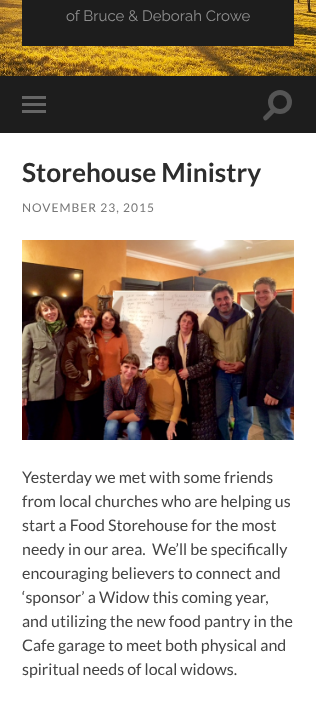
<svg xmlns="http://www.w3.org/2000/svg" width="316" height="704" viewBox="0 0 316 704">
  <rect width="100%" height="100%" fill="rgb(255,255,255)"/>
  <image x="0" y="0" width="316" height="76" href="pic1.png"/>
  <rect x="22" y="0" width="272" height="46" fill="rgb(29,29,29)"/>
  <text x="66" y="21" font-family="Raleway" font-size="15" font-weight="100" fill="rgb(142,142,142)">of Bruce &amp; Deborah Crowe</text>
  <rect x="0" y="76" width="316" height="57" fill="rgb(29,29,29)"/>
  <rect x="22" y="96" width="24" height="3" fill="rgb(102,102,102)"/>
  <rect x="22" y="103" width="24" height="3" fill="rgb(102,102,102)"/>
  <rect x="22" y="110" width="24" height="3" fill="rgb(102,102,102)"/>
  <circle cx="280" cy="102" r="12" fill="rgb(85,85,85)"/>
  <circle cx="280" cy="102" r="7" fill="rgb(29,29,29)"/>
  <path d="M263.5 116.5L272 108L275.5 111.5L270 117C268 119 265.5 122.5 263.5 119C263 118 263 117 263.5 116.5Z" fill="rgb(85,85,85)"/>
  <text x="22" y="182" font-family="Lato" font-size="26.25" font-weight="bold" fill="rgb(45,45,45)">Storehouse Ministry</text>
  <text x="22" y="212" font-family="Lato" font-size="12" letter-spacing="1" fill="rgb(118,118,118)">NOVEMBER 23, 2015</text>
  <image x="22" y="240" width="272" height="200" href="pic2.png"/>
  <g font-family="Lato" font-size="16" fill="rgb(68,68,68)">
    <text xml:space="preserve"><tspan x="22" y="483">Yesterday we met with some friends</tspan><tspan x="22" y="507">from local churches who are helping us</tspan><tspan x="22" y="531">start a Food Storehouse for the most</tspan><tspan x="22" y="555">needy in our area.  We’ll be specifically</tspan><tspan x="22" y="579">encouraging believers to connect and</tspan><tspan x="22" y="603">‘sponsor’ a Widow this coming year,</tspan><tspan x="22" y="627">and utilizing the new food pantry in the</tspan><tspan x="22" y="651">Cafe garage to meet both physical and</tspan><tspan x="22" y="675">spiritual needs of local widows.</tspan></text>
  </g>
</svg>
